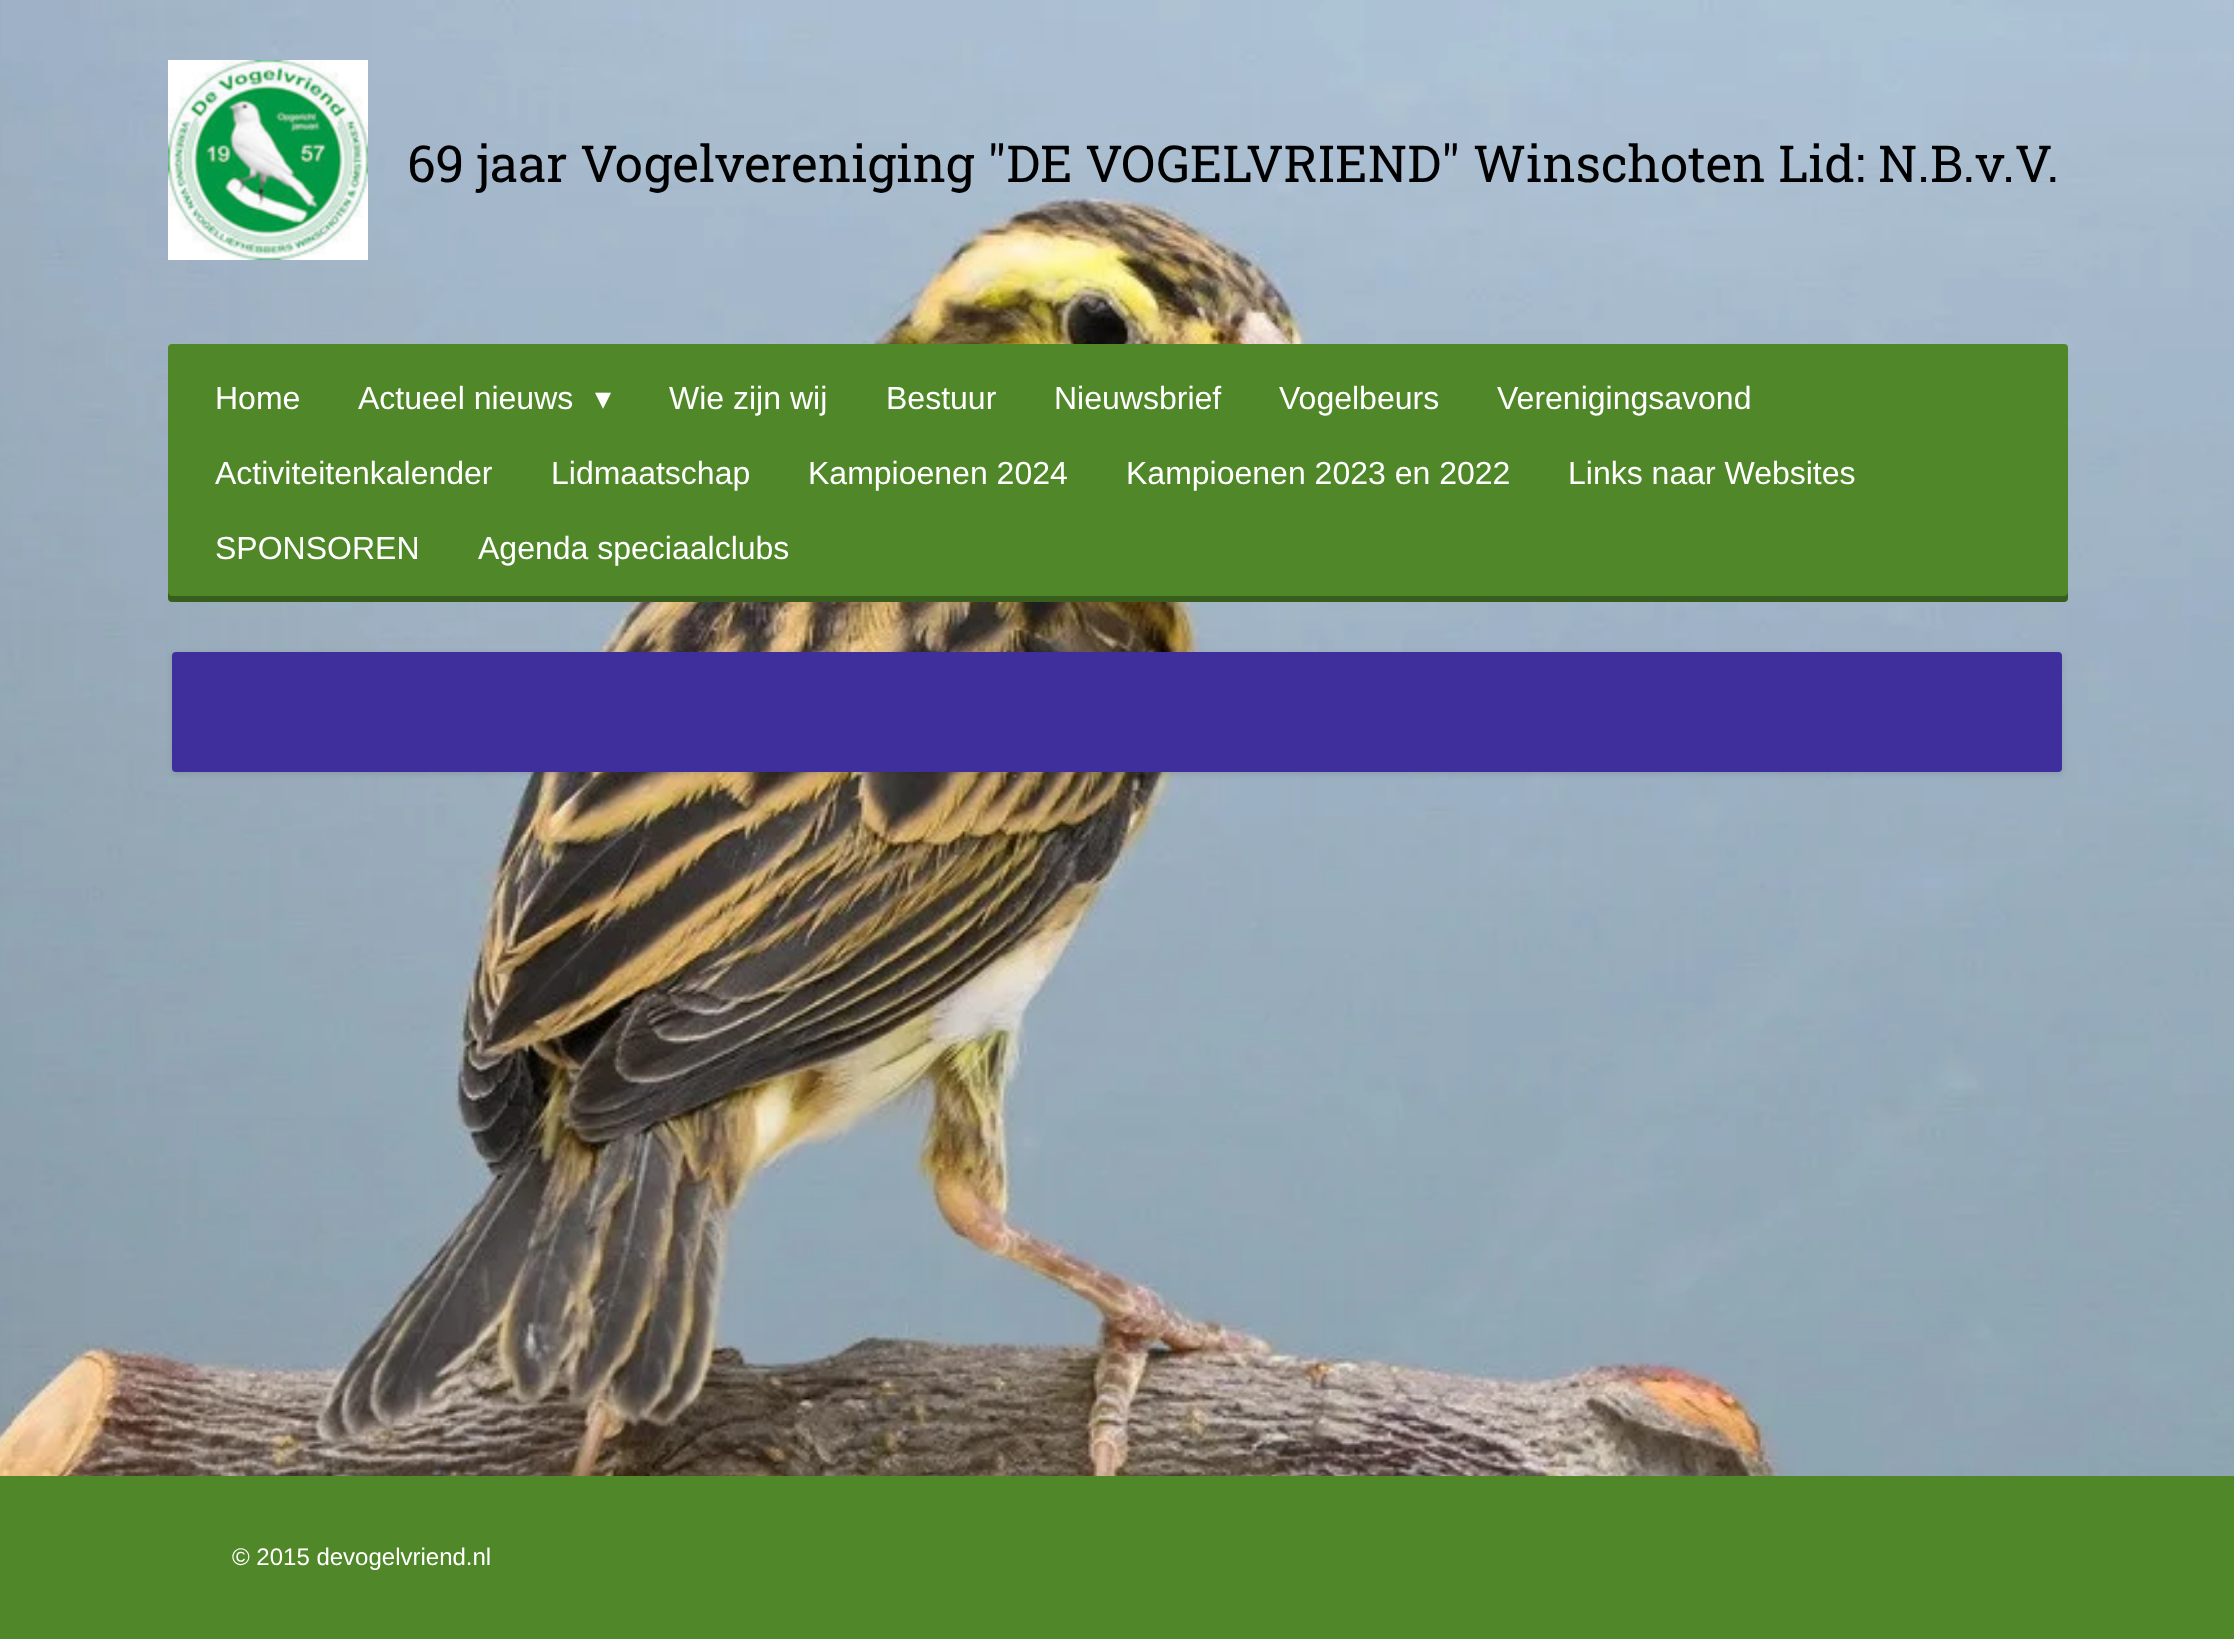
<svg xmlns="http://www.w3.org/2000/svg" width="2234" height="1639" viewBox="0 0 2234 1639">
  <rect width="100%" height="100%" fill="rgb(255,255,255)"/>
  <image x="0" y="0" width="2234" height="1476" href="pic1.png"/>
  <image x="168" y="60" width="200" height="200" href="pic2.png"/>
  <text x="407" y="182" font-family="Roboto Slab" font-size="51" fill="rgb(0,0,0)">69 jaar Vogelvereniging "DE VOGELVRIEND" Winschoten Lid: N.B.v.V.</text>
  <rect x="168" y="344" width="1900" height="258" rx="4" fill="rgb(80,135,41)"/>
  <path d="M168 592V598C168 600 170 602 172 602H2064C2066 602 2068 600 2068 598V592C2068 594 2066 596 2064 596H172C170 596 168 594 168 592Z" fill="rgba(0,0,0,0.3)"/>
  <g font-family="Liberation Sans" font-size="32" fill="rgb(255,255,255)">
    <text x="215" y="409">Home</text>
    <text x="358" y="409">Actueel nieuws</text>
  </g>
  <text x="595" y="409" font-family="DejaVu Sans" font-size="32" fill="rgb(255,255,255)">▾</text>
  <g font-family="Liberation Sans" font-size="32" fill="rgb(255,255,255)">
    <text x="669" y="409">Wie zijn wij</text>
    <text x="886" y="409">Bestuur</text>
    <text x="1054" y="409">Nieuwsbrief</text>
    <text x="1279" y="409">Vogelbeurs</text>
    <text x="1497" y="409">Verenigingsavond</text>
    <text x="215" y="484">Activiteitenkalender</text>
    <text x="551" y="484">Lidmaatschap</text>
    <text x="808" y="484">Kampioenen 2024</text>
    <text x="1126" y="484">Kampioenen 2023 en 2022</text>
    <text x="1568" y="484">Links naar Websites</text>
    <text x="215" y="559">SPONSOREN</text>
    <text x="478" y="559">Agenda speciaalclubs</text>
  </g>
  <rect x="172" y="654" width="1890" height="120" fill="rgba(0,0,0,0.1)" filter="blur(3px)"/>
  <rect x="172" y="652" width="1890" height="120" rx="4" fill="rgb(62,47,157)"/>
  <rect x="0" y="1476" width="2234" height="163" fill="rgb(80,135,41)"/>
  <text x="232" y="1565" font-family="Liberation Sans" font-size="24" fill="rgb(255,255,255)">© 2015 devogelvriend.nl</text>
</svg>
